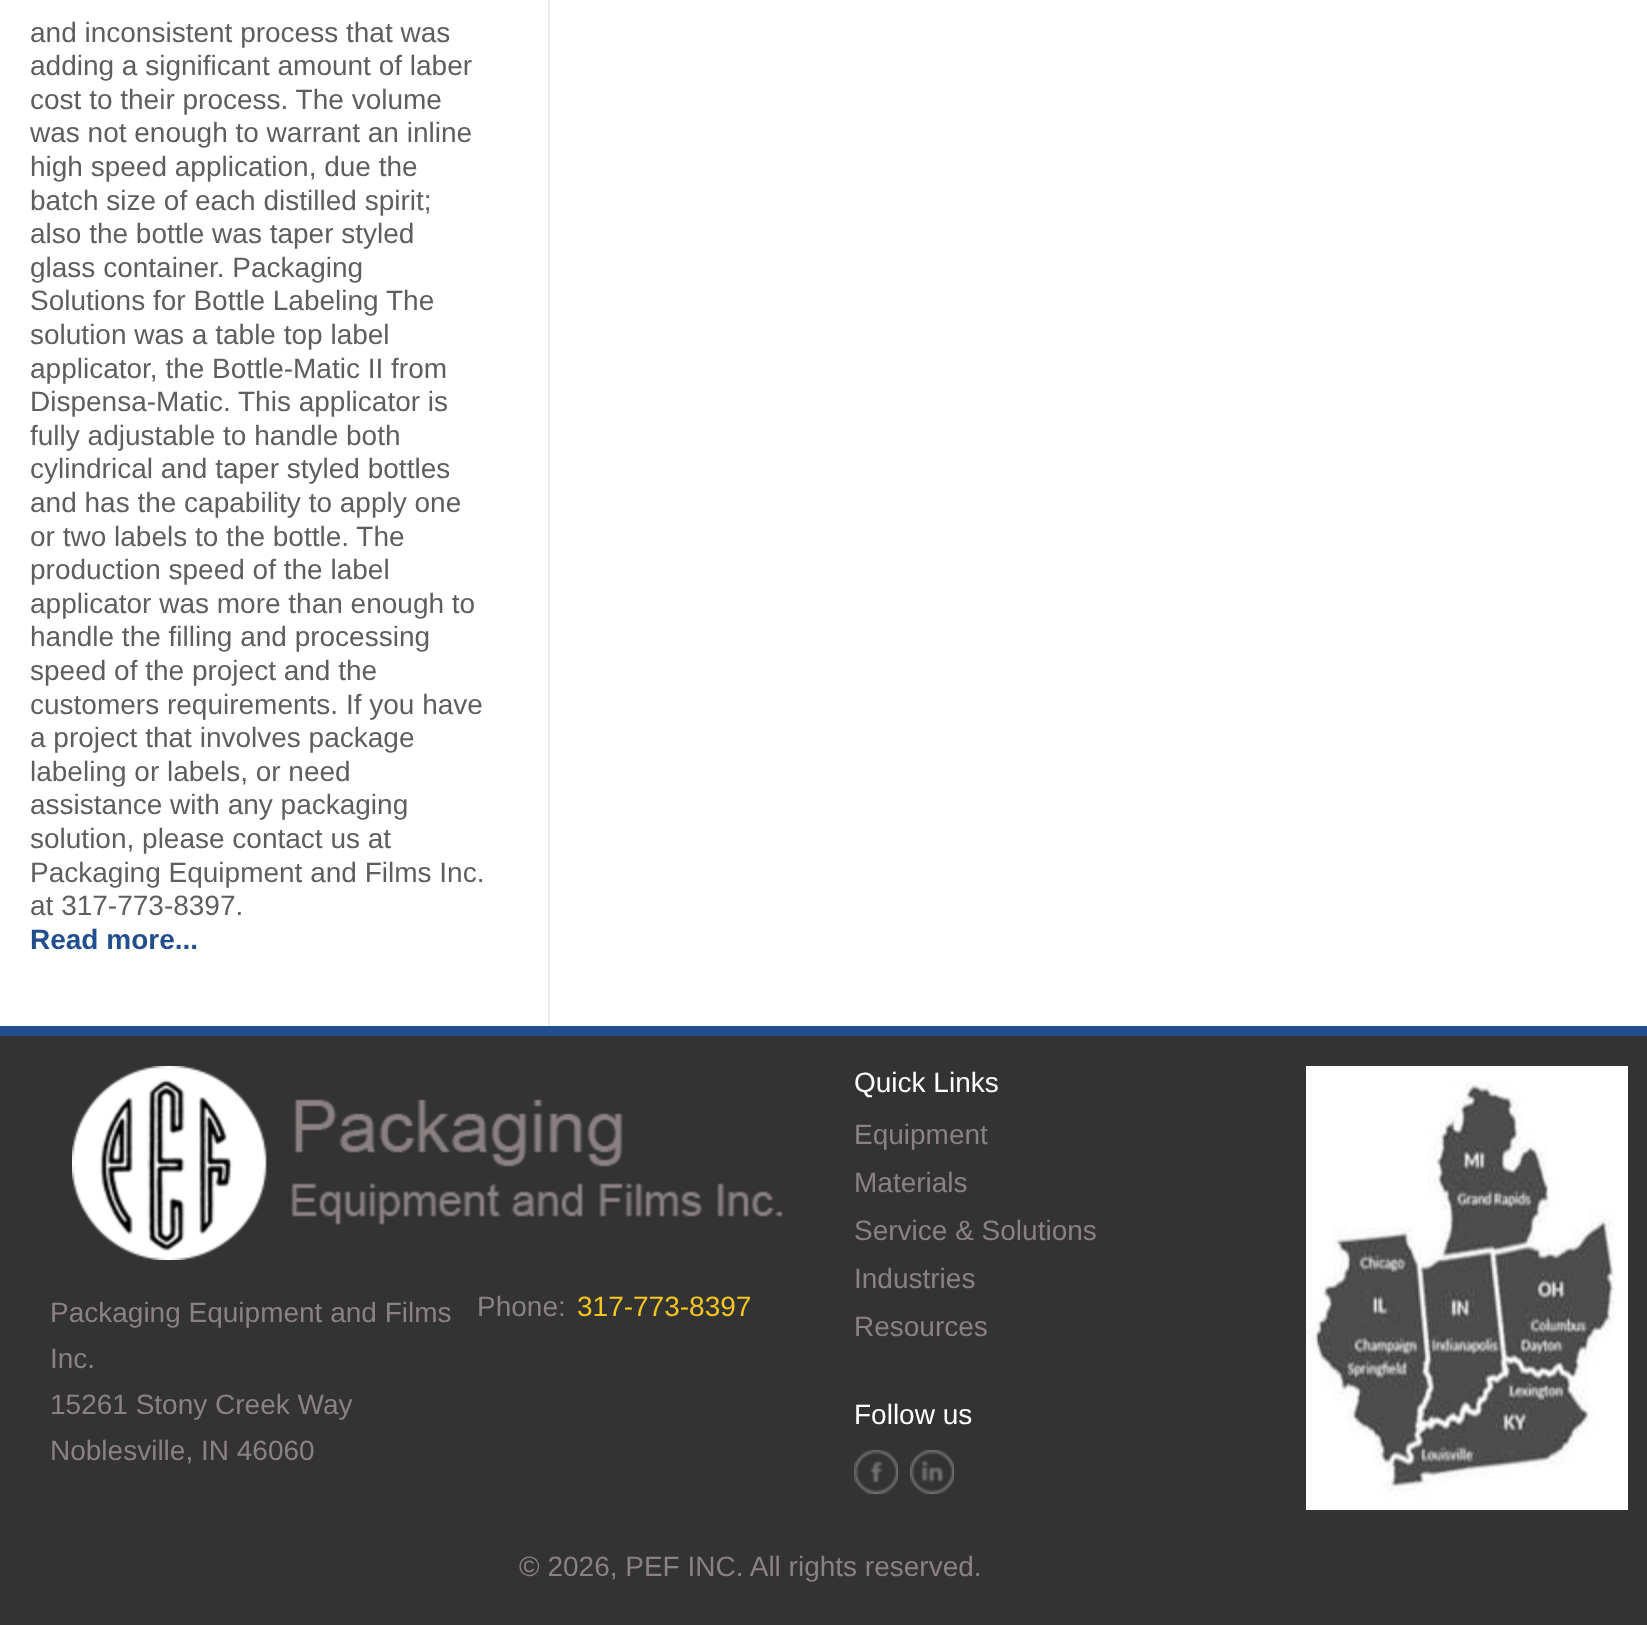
<svg xmlns="http://www.w3.org/2000/svg" width="1647" height="1625" viewBox="0 0 1647 1625">
  <rect width="100%" height="100%" fill="rgb(255,255,255)"/>
  <rect x="548" y="0" width="2" height="1026" fill="rgb(238,238,238)"/>
  <g font-family="Liberation Sans" font-size="28" fill="rgb(96,93,93)">
    <text>
      <tspan x="30" y="42">and inconsistent process that was</tspan>
      <tspan x="30" y="75">adding a significant amount of laber</tspan>
      <tspan x="30" y="109">cost to their process. The volume</tspan>
      <tspan x="30" y="142">was not enough to warrant an inline</tspan>
      <tspan x="30" y="176">high speed application, due the</tspan>
      <tspan x="30" y="210">batch size of each distilled spirit;</tspan>
      <tspan x="30" y="243">also the bottle was taper styled</tspan>
      <tspan x="30" y="277">glass container. Packaging</tspan>
      <tspan x="30" y="310">Solutions for Bottle Labeling</tspan>
    </text>
    <text x="386" y="310">The</text>
    <text>
      <tspan x="30" y="344">solution was a table top label</tspan>
      <tspan x="30" y="378">applicator, the Bottle-Matic II from</tspan>
      <tspan x="30" y="411">Dispensa-Matic. This applicator is</tspan>
      <tspan x="30" y="445">fully adjustable to handle both</tspan>
      <tspan x="30" y="478">cylindrical and taper styled bottles</tspan>
      <tspan x="30" y="512">and has the capability to apply one</tspan>
      <tspan x="30" y="546">or two labels to the bottle. The</tspan>
      <tspan x="30" y="579">production speed of the label</tspan>
      <tspan x="30" y="613">applicator was more than enough to</tspan>
      <tspan x="30" y="646">handle the filling and processing</tspan>
      <tspan x="30" y="680">speed of the project and the</tspan>
      <tspan x="30" y="714">customers requirements. If you have</tspan>
      <tspan x="30" y="747">a project that involves package</tspan>
      <tspan x="30" y="781">labeling or labels, or need</tspan>
      <tspan x="30" y="814">assistance with any packaging</tspan>
      <tspan x="30" y="848">solution, please contact us at</tspan>
      <tspan x="30" y="882">Packaging Equipment and Films Inc.</tspan>
      <tspan x="30" y="915">at 317-773-8397.</tspan>
    </text>
  </g>
  <text x="30" y="949" font-family="Liberation Sans" font-size="28" font-weight="bold" fill="rgb(33,78,141)">Read more...</text>
  <rect x="0" y="1036" width="1647" height="589" fill="rgb(51,51,51)"/>
  <rect x="0" y="1026" width="1647" height="10" fill="rgb(33,78,141)"/>
  <image x="72" y="1066" width="710" height="194" href="pic1.png"/>
  <g font-family="Liberation Sans" font-size="28" fill="rgb(138,130,130)">
    <text>
      <tspan x="50" y="1322">Packaging Equipment and Films</tspan>
      <tspan x="50" y="1368">Inc.</tspan>
      <tspan x="50" y="1414">15261 Stony Creek Way</tspan>
      <tspan x="50" y="1460">Noblesville, IN 46060</tspan>
    </text>
    <text x="477" y="1316">Phone:</text>
  </g>
  <text x="577" y="1316" font-family="Liberation Sans" font-size="28" fill="rgb(245,197,32)">317-773-8397</text>
  <text x="854" y="1092" font-family="Liberation Sans" font-size="28" fill="rgb(255,255,255)">Quick Links</text>
  <g font-family="Liberation Sans" font-size="28" fill="rgb(138,130,130)">
    <text>
      <tspan x="854" y="1144">Equipment</tspan>
      <tspan x="854" y="1192">Materials</tspan>
      <tspan x="854" y="1240">Service &amp; Solutions</tspan>
      <tspan x="854" y="1288">Industries</tspan>
      <tspan x="854" y="1336">Resources</tspan>
    </text>
  </g>
  <text x="854" y="1424" font-family="Liberation Sans" font-size="28" fill="rgb(255,255,255)">Follow us</text>
  <image x="854" y="1450" width="44" height="44" href="pic2.png"/>
  <image x="910" y="1450" width="44" height="44" href="pic3.png"/>
  <image x="1306" y="1066" width="322" height="444" href="pic4.png"/>
  <text x="519" y="1576" font-family="Liberation Sans" font-size="28" fill="rgb(138,130,130)">© 2026, PEF INC. All rights reserved.</text>
</svg>
